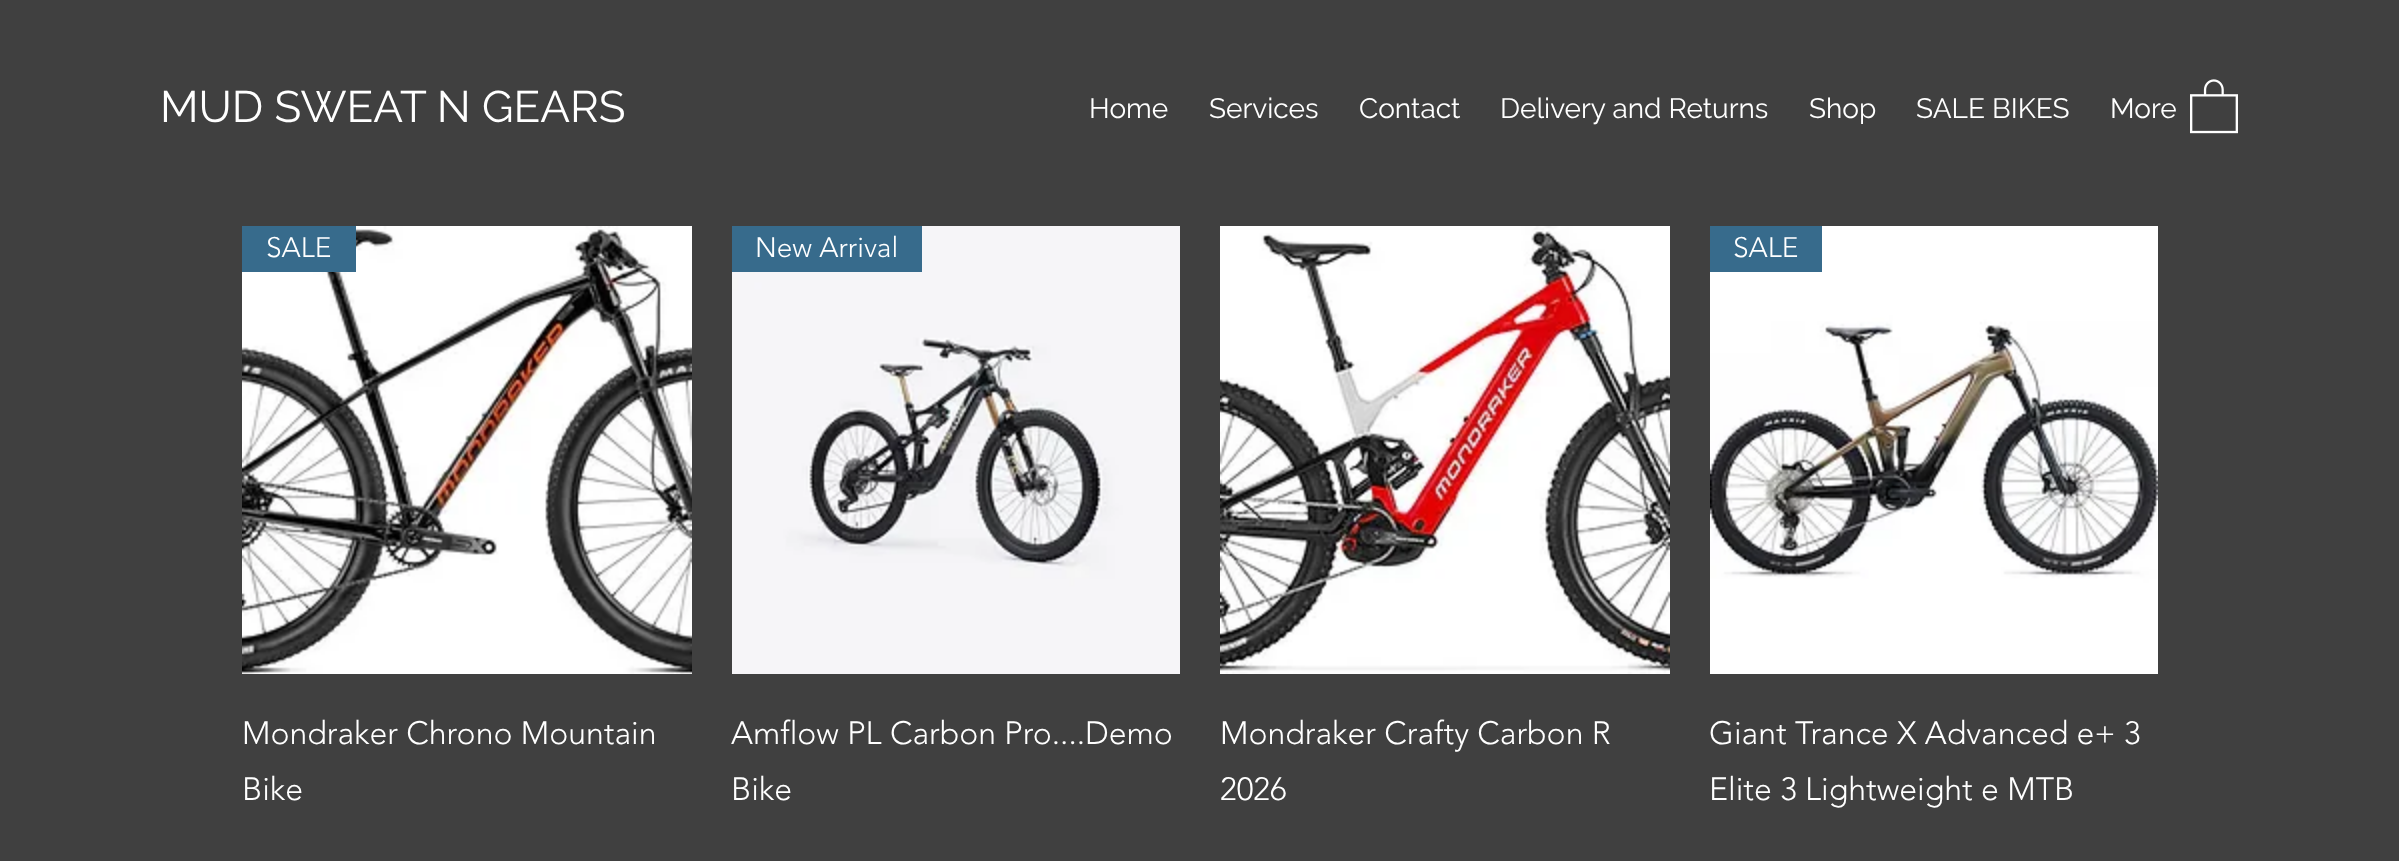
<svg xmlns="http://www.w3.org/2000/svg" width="2399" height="861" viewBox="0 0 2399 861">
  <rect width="100%" height="100%" fill="rgb(64,64,64)"/>
  <text x="160" y="122" font-family="Raleway" font-size="44" fill="rgb(255,255,255)">MUD SWEAT N GEARS</text>
  <g font-family="Raleway" font-size="28" fill="rgb(255,255,255)">
    <text x="1089" y="118">Home</text>
    <text x="1209" y="118">Services</text>
    <text x="1359" y="118">Contact</text>
    <text x="1500" y="118">Delivery and Returns</text>
    <text x="1809" y="118">Shop</text>
    <text x="1916" y="118">SALE BIKES</text>
    <text x="2110" y="118">More</text>
  </g>
  <image x="2190" y="79" width="48" height="55" href="pic1.png"/>
  <image x="242" y="226" width="450" height="448" href="pic2.png"/>
  <rect x="242" y="226" width="114" height="46" fill="rgb(55,107,140)"/>
  <text x="266" y="257" font-family="'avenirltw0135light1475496'" font-size="28" font-weight="300" fill="rgb(255,255,255)">SALE</text>
  <g font-family="'avenirltw0135light1475496'" font-size="32" font-weight="300" fill="rgb(255,255,255)">
    <text>
      <tspan x="242" y="744">Mondraker Chrono Mountain</tspan>
      <tspan x="242" y="800">Bike</tspan>
    </text>
  </g>
  <image x="732" y="226" width="448" height="448" href="pic3.png"/>
  <rect x="732" y="226" width="190" height="46" fill="rgb(55,107,140)"/>
  <text x="755" y="257" font-family="'avenirltw0135light1475496'" font-size="28" font-weight="300" fill="rgb(255,255,255)">New Arrival</text>
  <g font-family="'avenirltw0135light1475496'" font-size="32" font-weight="300" fill="rgb(255,255,255)">
    <text>
      <tspan x="731" y="744">Amflow PL Carbon Pro....Demo</tspan>
      <tspan x="731" y="800">Bike</tspan>
    </text>
  </g>
  <image x="1220" y="226" width="450" height="448" href="pic4.png"/>
  <g font-family="'avenirltw0135light1475496'" font-size="32" font-weight="300" fill="rgb(255,255,255)">
    <text>
      <tspan x="1220" y="744">Mondraker Crafty Carbon R</tspan>
      <tspan x="1220" y="800">2026</tspan>
    </text>
  </g>
  <image x="1710" y="226" width="448" height="448" href="pic5.png"/>
  <rect x="1710" y="226" width="112" height="46" fill="rgb(55,107,140)"/>
  <text x="1733" y="257" font-family="'avenirltw0135light1475496'" font-size="28" font-weight="300" fill="rgb(255,255,255)">SALE</text>
  <g font-family="'avenirltw0135light1475496'" font-size="32" font-weight="300" fill="rgb(255,255,255)">
    <text>
      <tspan x="1709" y="744">Giant Trance X Advanced e+ 3</tspan>
      <tspan x="1709" y="800">Elite 3 Lightweight e MTB</tspan>
    </text>
  </g>
</svg>
